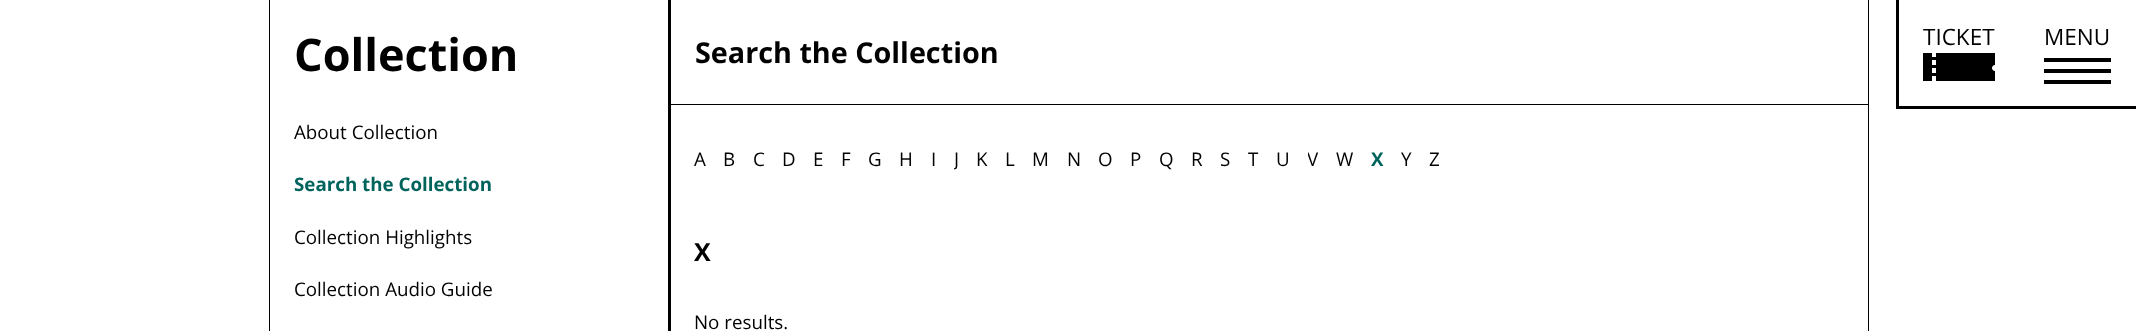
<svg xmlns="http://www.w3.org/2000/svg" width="2136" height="331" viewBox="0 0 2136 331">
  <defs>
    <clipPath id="clip1"><rect x="954" y="143" width="5" height="33"/></clipPath>
    <clipPath id="clip2"><rect x="1308" y="143" width="11" height="33"/></clipPath>
    <clipPath id="clip3"><rect x="1923" y="53" width="72" height="28"/></clipPath>
  </defs>
  <rect width="100%" height="100%" fill="rgb(255,255,255)"/>
  <rect x="1868" y="0" width="1" height="331" fill="rgb(0,0,0)"/>
  <rect x="269" y="0" width="1" height="331" fill="rgb(0,0,0)"/>
  <text x="294" y="71" font-family="Open Sans" font-size="45" font-weight="bold" fill="rgb(0,0,0)">Collection</text>
  <rect x="668" y="0" width="3" height="331" fill="rgb(0,0,0)"/>
  <text x="294" y="139" font-family="Open Sans" font-size="18.75" fill="rgb(0,0,0)">About Collection</text>
  <text x="294" y="191" font-family="Open Sans" font-size="18.75" font-weight="bold" fill="rgb(0,100,92)">Search the Collection</text>
  <g font-family="Open Sans" font-size="18.75" fill="rgb(0,0,0)">
    <text x="294" y="244">Collection Highlights</text>
    <text x="294" y="296">Collection Audio Guide</text>
  </g>
  <rect x="669" y="104" width="1199" height="1" fill="rgb(0,0,0)"/>
  <text x="695" y="63" font-family="Open Sans" font-size="28.75" font-weight="bold" fill="rgb(0,0,0)">Search the Collection</text>
  <g font-family="Open Sans" font-size="18.75" fill="rgb(0,0,0)">
    <text x="694" y="166">A</text>
    <text x="723" y="166">B</text>
    <text x="753" y="166">C</text>
    <text x="782" y="166">D</text>
    <text x="813" y="166">E</text>
    <text x="841" y="166">F</text>
    <text x="868" y="166">G</text>
    <text x="899" y="166">H</text>
    <text x="931" y="166">I</text>
  </g>
  <g clip-path="url(#clip1)">
    <text x="954" y="166" font-family="Open Sans" font-size="18.75" fill="rgb(0,0,0)">J</text>
  </g>
  <g font-family="Open Sans" font-size="18.75" fill="rgb(0,0,0)">
    <text x="976" y="166">K</text>
    <text x="1005" y="166">L</text>
    <text x="1032" y="166">M</text>
    <text x="1067" y="166">N</text>
    <text x="1098" y="166">O</text>
    <text x="1130" y="166">P</text>
    <text x="1159" y="166">Q</text>
    <text x="1191" y="166">R</text>
    <text x="1220" y="166">S</text>
    <text x="1248" y="166">T</text>
    <text x="1276" y="166">U</text>
  </g>
  <g clip-path="url(#clip2)">
    <text x="1307" y="166" font-family="Open Sans" font-size="18.75" fill="rgb(0,0,0)">V</text>
  </g>
  <text x="1336" y="166" font-family="Open Sans" font-size="18.75" fill="rgb(0,0,0)">W</text>
  <text x="1371" y="166" font-family="Open Sans" font-size="18.75" font-weight="bold" fill="rgb(0,100,92)">X</text>
  <g font-family="Open Sans" font-size="18.75" fill="rgb(0,0,0)">
    <text x="1401" y="166">Y</text>
    <text x="1429" y="166">Z</text>
  </g>
  <text x="694" y="261" font-family="Open Sans" font-size="25" font-weight="bold" fill="rgb(0,0,0)">X</text>
  <text x="694" y="329" font-family="Open Sans" font-size="18.75" fill="rgb(0,0,0)">No results.</text>
  <rect x="1896" y="106" width="240" height="3" fill="rgb(0,0,0)"/>
  <rect x="1896" y="0" width="3" height="109" fill="rgb(0,0,0)"/>
  <text x="1923" y="45" font-family="Open Sans" font-size="22.5" fill="rgb(0,0,0)">TICKET</text>
  <g clip-path="url(#clip3)">
    <path d="M1936 81H1922V53H1932V57H1936V53H1995V65C1991 65 1991 71 1995 71V81H1936V76H1932V81ZM1932 68V73H1936V68ZM1932 60V65H1936V60Z" fill="rgb(0,0,0)"/>
  </g>
  <text x="2044" y="45" font-family="Open Sans" font-size="22.5" fill="rgb(0,0,0)">MENU</text>
  <rect x="2044" y="58" width="67" height="4" fill="rgb(0,0,0)"/>
  <rect x="2044" y="69" width="67" height="4" fill="rgb(0,0,0)"/>
  <rect x="2044" y="80" width="67" height="4" fill="rgb(0,0,0)"/>
</svg>
